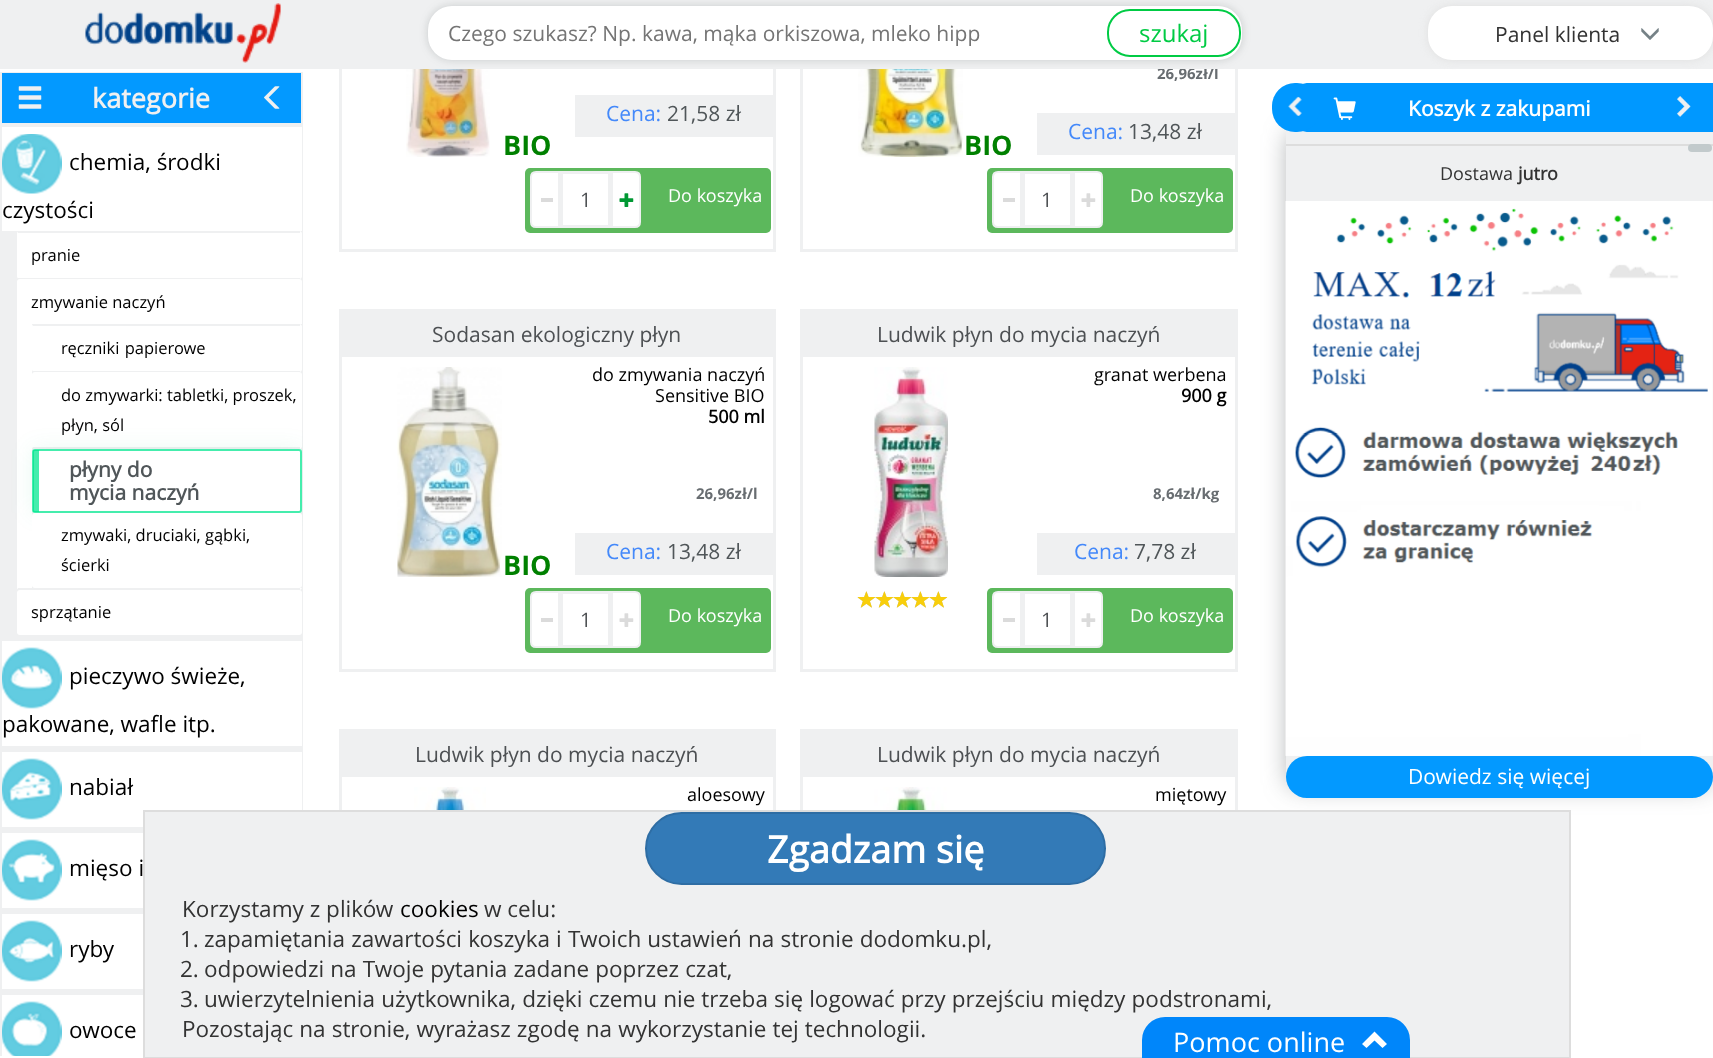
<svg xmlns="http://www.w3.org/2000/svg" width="1713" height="1058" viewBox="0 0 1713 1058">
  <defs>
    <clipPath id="clip1"><rect x="0" y="72" width="303" height="984"/></clipPath>
    <clipPath id="clip2"><rect x="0" y="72" width="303" height="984"/></clipPath>
  </defs>
  <rect width="100%" height="100%" fill="rgb(255,255,255)"/>
  <rect x="340.5" y="-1.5" width="434" height="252" fill="none" stroke="rgb(239,240,241)" stroke-width="3"/>
  <rect x="801.5" y="-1.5" width="435" height="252" fill="none" stroke="rgb(239,240,241)" stroke-width="3"/>
  <text x="1157" y="79" font-family="'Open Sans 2'" font-size="15" font-weight="bold" fill="rgb(104,109,113)">26,96zł/l</text>
  <rect x="0" y="0" width="1713" height="69" fill="rgb(239,240,241)"/>
  <image x="85" y="3" width="196" height="60" href="pic1.png"/>
  <image x="406" y="69" width="84" height="88" href="pic11.png"/>
  <image x="858" y="69" width="105" height="88" href="pic13.png"/>
  <rect x="428" y="6" width="814" height="54" rx="24" fill="rgba(80,86,89,0.24)" filter="blur(4.5px)"/>
  <rect x="428" y="6" width="814" height="54" rx="24" fill="rgb(255,255,255)"/>
  <text x="448" y="41" font-family="Open Sans" font-size="21" fill="rgb(117,117,117)">Czego szukasz? Np. kawa, mąka orkiszowa, mleko hipp</text>
  <rect x="1108" y="10" width="132" height="46" rx="22" fill="none" stroke="rgb(0,203,68)" stroke-width="2"/>
  <text x="1139" y="42" font-family="Open Sans" font-size="24" fill="rgb(0,203,68)">szukaj</text>
  <rect x="1428" y="6" width="285" height="54" rx="24" fill="rgb(223,223,223)" filter="blur(4.5px)"/>
  <rect x="1428" y="6" width="285" height="54" rx="24" fill="rgb(255,255,255)"/>
  <text x="1495" y="42" font-family="Open Sans" font-size="21" fill="rgb(51,51,51)">Panel klienta</text>
  <image x="1641" y="28" width="18" height="12" href="pic2.png"/>
  <rect x="0" y="125" width="303" height="931" fill="rgb(239,240,241)"/>
  <rect x="2" y="73" width="299" height="50" fill="rgb(3,153,255)"/>
  <g clip-path="url(#clip1)">
    <rect x="1" y="72" width="301" height="52" fill="none" stroke="rgb(239,240,241)" stroke-width="2"/>
  </g>
  <image x="18" y="86" width="24" height="23" href="pic3.png"/>
  <text x="92" y="108" font-family="Open Sans" font-size="27" font-weight="bold" fill="rgb(239,240,241)">kategorie</text>
  <image x="264" y="86" width="16" height="23" href="pic4.png"/>
  <rect x="2" y="127" width="300" height="104" fill="rgb(255,255,255)"/>
  <image x="2" y="134" width="60" height="60" href="pic5.png"/>
  <g font-family="Open Sans" font-size="22.5" fill="rgb(0,0,0)">
    <text x="69" y="170">chemia, środki</text>
    <text x="2" y="218">czystości</text>
  </g>
  <rect x="17" y="231" width="285" height="48" rx="3" fill="rgb(255,255,255)"/>
  <rect x="18" y="231" width="282" height="2" fill="rgb(239,240,241)"/>
  <rect x="18" y="278" width="282" height="1" fill="rgb(239,240,241)"/>
  <text x="31" y="261" font-family="Open Sans" font-size="16.5" fill="rgb(0,0,0)">pranie</text>
  <rect x="17" y="279" width="285" height="311" rx="3" fill="rgb(255,255,255)"/>
  <rect x="18" y="588" width="282" height="2" fill="rgb(239,240,241)"/>
  <text x="31" y="308" font-family="Open Sans" font-size="16.5" fill="rgb(0,0,0)">zmywanie naczyń</text>
  <rect x="32" y="324" width="270" height="264" fill="rgb(239,240,241)"/>
  <rect x="32" y="324" width="270" height="48" rx="3" fill="rgb(255,255,255)"/>
  <rect x="33" y="324" width="267" height="2" fill="rgb(239,240,241)"/>
  <rect x="33" y="371" width="267" height="1" fill="rgb(239,240,241)"/>
  <text x="61" y="354" word-spacing="1" font-family="Open Sans" font-size="16.5" fill="rgb(0,0,0)">ręczniki papierowe</text>
  <rect x="32" y="372" width="270" height="77" rx="3" fill="rgb(255,255,255)"/>
  <rect x="33" y="447" width="267" height="2" fill="rgb(239,240,241)"/>
  <g font-family="Open Sans" font-size="16.5" fill="rgb(0,0,0)">
    <text>
      <tspan x="61" y="401">do zmywarki: tabletki, proszek,</tspan>
      <tspan x="61" y="431">płyn, sól</tspan>
    </text>
  </g>
  <g clip-path="url(#clip2)">
    <rect x="32" y="449" width="270" height="64" rx="3" fill="rgba(40,193,135,0.1)" filter="blur(11px)"/>
  </g>
  <rect x="32" y="449" width="270" height="64" rx="3" fill="rgb(255,255,255)"/>
  <rect x="33" y="450" width="268" height="62" rx="2" fill="none" stroke="rgba(0,230,142,0.73)" stroke-width="2"/>
  <rect x="33" y="450" width="6" height="62" fill="rgba(0,230,142,0.73)"/>
  <g font-family="Open Sans" font-size="21" font-weight="bold" fill="rgb(80,86,89)">
    <text>
      <tspan x="69" y="477">płyny do</tspan>
      <tspan x="69" y="500">mycia naczyń</tspan>
    </text>
  </g>
  <rect x="32" y="513" width="270" height="75" rx="3" fill="rgb(255,255,255)"/>
  <g font-family="Open Sans" font-size="16.5" fill="rgb(0,0,0)">
    <text>
      <tspan x="61" y="541">zmywaki, druciaki, gąbki,</tspan>
      <tspan x="61" y="571">ścierki</tspan>
    </text>
  </g>
  <rect x="17" y="590" width="285" height="45" rx="3" fill="rgb(255,255,255)"/>
  <text x="31" y="618" font-family="Open Sans" font-size="16.5" fill="rgb(0,0,0)">sprzątanie</text>
  <rect x="2" y="641" width="300" height="105" fill="rgb(255,255,255)"/>
  <image x="2" y="647" width="60" height="62" href="pic6.png"/>
  <g font-family="Open Sans" font-size="22.5" fill="rgb(0,0,0)">
    <text x="69" y="684">pieczywo świeże,</text>
    <text x="2" y="732">pakowane, wafle itp.</text>
  </g>
  <rect x="2" y="752" width="300" height="75" fill="rgb(255,255,255)"/>
  <image x="2" y="758" width="60" height="62" href="pic7.png"/>
  <text x="69" y="795" font-family="Open Sans" font-size="22.5" fill="rgb(0,0,0)">nabiał</text>
  <rect x="2" y="833" width="141" height="75" fill="rgb(255,255,255)"/>
  <image x="2" y="839" width="60" height="62" href="pic8.png"/>
  <text x="69" y="876" font-family="Open Sans" font-size="22.5" fill="rgb(0,0,0)">mięso i</text>
  <rect x="2" y="914" width="141" height="75" fill="rgb(255,255,255)"/>
  <image x="2" y="920" width="60" height="62" href="pic9.png"/>
  <text x="69" y="957" font-family="Open Sans" font-size="22.5" fill="rgb(0,0,0)">ryby</text>
  <rect x="2" y="995" width="141" height="61" fill="rgb(255,255,255)"/>
  <image x="2" y="1001" width="60" height="55" href="pic10.png"/>
  <text x="69" y="1038" font-family="Open Sans" font-size="22.5" fill="rgb(0,0,0)">owoce</text>
  <rect x="575" y="95" width="198" height="42" fill="rgb(239,240,241)"/>
  <text x="606" y="121" font-family="Open Sans" font-size="21" fill="rgb(68,137,250)">Cena:</text>
  <text x="667" y="121" font-family="Open Sans" font-size="21" fill="rgb(80,86,89)">21,58 zł</text>
  <text x="503" y="155" font-family="'Open Sans 2'" font-size="27" font-weight="bold" fill="rgb(0,128,0)">BIO</text>
  <rect x="525" y="168" width="246" height="65" rx="5" fill="rgb(92,184,92)"/>
  <path d="M536 172H559V227H536C533 227 531 225 531 222V177C531 174 533 172 536 172Z" fill="rgb(255,255,255)" stroke="rgb(239,240,241)" stroke-width="2"/>
  <rect x="541" y="198" width="12" height="4" fill="rgb(219,219,219)"/>
  <rect x="561.5" y="172.5" width="48" height="54" fill="rgb(255,255,255)" stroke="rgb(239,240,241)" stroke-width="3"/>
  <text x="580" y="207" font-family="Open Sans" font-size="20" fill="rgb(77,80,83)">1</text>
  <path d="M612 172H635C638 172 640 174 640 177V222C640 225 638 227 635 227H612Z" fill="rgb(255,255,255)" stroke="rgb(239,240,241)" stroke-width="2"/>
  <image x="619" y="193" width="15" height="14" href="pic12.png"/>
  <text x="668" y="202" font-family="Open Sans" font-size="18" fill="rgb(255,255,255)">Do koszyka</text>
  <rect x="1037" y="113" width="198" height="42" fill="rgb(239,240,241)"/>
  <text x="1068" y="139" font-family="Open Sans" font-size="21" fill="rgb(68,137,250)">Cena:</text>
  <text x="1128" y="139" font-family="Open Sans" font-size="21" fill="rgb(80,86,89)">13,48 zł</text>
  <rect x="962" y="126" width="54" height="39" rx="18" fill="rgb(255,255,255)"/>
  <text x="964" y="155" font-family="'Open Sans 2'" font-size="27" font-weight="bold" fill="rgb(0,128,0)">BIO</text>
  <rect x="987" y="168" width="246" height="65" rx="5" fill="rgb(92,184,92)"/>
  <path d="M998 172H1021V227H998C995 227 993 225 993 222V177C993 174 995 172 998 172Z" fill="rgb(255,255,255)" stroke="rgb(239,240,241)" stroke-width="2"/>
  <rect x="1003" y="198" width="12" height="4" fill="rgb(219,219,219)"/>
  <rect x="1023.5" y="172.5" width="48" height="54" fill="rgb(255,255,255)" stroke="rgb(239,240,241)" stroke-width="3"/>
  <text x="1041" y="207" font-family="Open Sans" font-size="20" fill="rgb(77,80,83)">1</text>
  <path d="M1074 172H1097C1100 172 1102 174 1102 177V222C1102 225 1100 227 1097 227H1074Z" fill="rgb(255,255,255)" stroke="rgb(239,240,241)" stroke-width="2"/>
  <image x="1081" y="193" width="15" height="14" href="pic14.png"/>
  <text x="1130" y="202" font-family="Open Sans" font-size="18" fill="rgb(255,255,255)">Do koszyka</text>
  <rect x="340.5" y="310.5" width="434" height="360" fill="none" stroke="rgb(239,240,241)" stroke-width="3"/>
  <rect x="342" y="312" width="431" height="45" fill="rgb(239,240,241)"/>
  <text x="432" y="342" font-family="Open Sans" font-size="21" fill="rgb(77,80,83)">Sodasan ekologiczny płyn</text>
  <g font-family="Open Sans" font-size="18" fill="rgb(0,0,0)">
    <text x="592" y="381">do zmywania naczyń</text>
    <text x="655" y="402">Sensitive BIO</text>
  </g>
  <text x="708" y="423" font-family="Open Sans" font-size="18" font-weight="bold" fill="rgb(0,0,0)">500 ml</text>
  <text x="696" y="499" font-family="'Open Sans 2'" font-size="15" font-weight="bold" fill="rgb(104,109,113)">26,96zł/l</text>
  <rect x="575" y="533" width="198" height="42" fill="rgb(239,240,241)"/>
  <text x="606" y="559" font-family="Open Sans" font-size="21" fill="rgb(68,137,250)">Cena:</text>
  <text x="667" y="559" font-family="Open Sans" font-size="21" fill="rgb(80,86,89)">13,48 zł</text>
  <image x="397" y="367" width="105" height="210" href="pic15.png"/>
  <rect x="500" y="546" width="55" height="39" rx="18" fill="rgb(255,255,255)"/>
  <text x="503" y="575" font-family="'Open Sans 2'" font-size="27" font-weight="bold" fill="rgb(0,128,0)">BIO</text>
  <rect x="525" y="588" width="246" height="65" rx="5" fill="rgb(92,184,92)"/>
  <path d="M536 592H559V647H536C533 647 531 645 531 642V597C531 594 533 592 536 592Z" fill="rgb(255,255,255)" stroke="rgb(239,240,241)" stroke-width="2"/>
  <rect x="541" y="618" width="12" height="4" fill="rgb(219,219,219)"/>
  <rect x="561.5" y="592.5" width="48" height="54" fill="rgb(255,255,255)" stroke="rgb(239,240,241)" stroke-width="3"/>
  <text x="580" y="627" font-family="Open Sans" font-size="20" fill="rgb(77,80,83)">1</text>
  <path d="M612 592H635C638 592 640 594 640 597V642C640 645 638 647 635 647H612Z" fill="rgb(255,255,255)" stroke="rgb(239,240,241)" stroke-width="2"/>
  <image x="619" y="613" width="15" height="14" href="pic14.png"/>
  <text x="668" y="622" font-family="Open Sans" font-size="18" fill="rgb(255,255,255)">Do koszyka</text>
  <rect x="801.5" y="310.5" width="435" height="360" fill="none" stroke="rgb(239,240,241)" stroke-width="3"/>
  <rect x="803" y="312" width="432" height="45" fill="rgb(239,240,241)"/>
  <text x="877" y="342" font-family="Open Sans" font-size="21" fill="rgb(77,80,83)">Ludwik płyn do mycia naczyń</text>
  <image x="874" y="367" width="74" height="210" href="pic16.png"/>
  <text x="1094" y="381" font-family="Open Sans" font-size="18" fill="rgb(0,0,0)">granat werbena</text>
  <text x="1181" y="402" font-family="Open Sans" font-size="18" font-weight="bold" fill="rgb(0,0,0)">900 g</text>
  <text x="1153" y="499" font-family="'Open Sans 2'" font-size="15" font-weight="bold" fill="rgb(104,109,113)">8,64zł/kg</text>
  <rect x="1037" y="533" width="198" height="42" fill="rgb(239,240,241)"/>
  <text x="1074" y="559" font-family="Open Sans" font-size="21" fill="rgb(68,137,250)">Cena:</text>
  <text x="1134" y="559" font-family="Open Sans" font-size="21" fill="rgb(80,86,89)">7,78 zł</text>
  <image x="857" y="591" width="90" height="17" href="pic17.png"/>
  <image x="858" y="591" width="90" height="17" href="pic18.png"/>
  <rect x="987" y="588" width="246" height="65" rx="5" fill="rgb(92,184,92)"/>
  <path d="M998 592H1021V647H998C995 647 993 645 993 642V597C993 594 995 592 998 592Z" fill="rgb(255,255,255)" stroke="rgb(239,240,241)" stroke-width="2"/>
  <rect x="1003" y="618" width="12" height="4" fill="rgb(219,219,219)"/>
  <rect x="1023.5" y="592.5" width="48" height="54" fill="rgb(255,255,255)" stroke="rgb(239,240,241)" stroke-width="3"/>
  <text x="1041" y="627" font-family="Open Sans" font-size="20" fill="rgb(77,80,83)">1</text>
  <path d="M1074 592H1097C1100 592 1102 594 1102 597V642C1102 645 1100 647 1097 647H1074Z" fill="rgb(255,255,255)" stroke="rgb(239,240,241)" stroke-width="2"/>
  <image x="1081" y="613" width="15" height="14" href="pic14.png"/>
  <text x="1130" y="622" font-family="Open Sans" font-size="18" fill="rgb(255,255,255)">Do koszyka</text>
  <rect x="340.5" y="730.5" width="434" height="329" fill="none" stroke="rgb(239,240,241)" stroke-width="3"/>
  <rect x="342" y="732" width="431" height="45" fill="rgb(239,240,241)"/>
  <text x="415" y="762" font-family="Open Sans" font-size="21" fill="rgb(77,80,83)">Ludwik płyn do mycia naczyń</text>
  <image x="414" y="787" width="72" height="23" href="pic19.png"/>
  <text x="687" y="801" font-family="Open Sans" font-size="18" fill="rgb(0,0,0)">aloesowy</text>
  <rect x="801.5" y="730.5" width="435" height="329" fill="none" stroke="rgb(239,240,241)" stroke-width="3"/>
  <rect x="803" y="732" width="432" height="45" fill="rgb(239,240,241)"/>
  <text x="877" y="762" font-family="Open Sans" font-size="21" fill="rgb(77,80,83)">Ludwik płyn do mycia naczyń</text>
  <image x="874" y="787" width="74" height="23" href="pic20.png"/>
  <text x="1155" y="801" font-family="Open Sans" font-size="18" fill="rgb(0,0,0)">miętowy</text>
  <rect x="1289" y="132" width="421" height="654" rx="6" fill="rgba(80,86,89,0.5)" filter="blur(13px)"/>
  <path d="M1286 129H1713V780C1713 785 1709 789 1704 789H1295C1290 789 1286 785 1286 780Z" fill="rgb(239,240,241)"/>
  <path d="M1309 83H1713V132H1309C1296.5 132 1286 121.5 1286 109V106C1286 93.5 1296.5 83 1309 83Z" fill="rgb(0,152,255)"/>
  <rect x="1272" y="83" width="48" height="49" rx="23" fill="rgb(0,152,255)"/>
  <image x="1288" y="96" width="14" height="20" href="pic21.png"/>
  <image x="1333" y="97" width="23" height="23" href="pic22.png"/>
  <text x="1408" y="116" font-family="Open Sans" font-size="21" font-weight="bold" fill="rgb(255,255,255)">Koszyk z zakupami</text>
  <image x="1677" y="96" width="14" height="21" href="pic23.png"/>
  <rect x="1286" y="144" width="427" height="2" fill="rgb(221,221,221)"/>
  <rect x="1688" y="144" width="24" height="8" rx="4" fill="rgb(194,202,204)"/>
  <text x="1440" y="180" font-family="Open Sans" font-size="18" fill="rgb(51,51,51)">Dostawa</text>
  <text x="1518" y="180" font-family="Open Sans" font-size="18" font-weight="bold" fill="rgb(51,51,51)">jutro</text>
  <image x="1285" y="201" width="428" height="555" href="pic24.png"/>
  <rect x="1286" y="756" width="427" height="42" rx="21" fill="rgb(3,153,255)"/>
  <text x="1408" y="784" font-family="Open Sans" font-size="21" fill="rgb(255,255,255)">Dowiedz się więcej</text>
  <rect x="144" y="811" width="1426" height="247" fill="rgb(239,240,241)" stroke="rgb(221,221,221)" stroke-width="2"/>
  <rect x="646" y="813" width="459" height="71" rx="35.5" fill="rgb(51,122,183)" stroke="rgb(46,109,164)" stroke-width="2"/>
  <text x="767" y="863" font-family="Open Sans" font-size="37.5" font-weight="bold" fill="rgb(255,255,255)">Zgadzam się</text>
  <text x="182" y="917" font-family="Open Sans" font-size="22.5" fill="rgb(51,51,51)">Korzystamy z plików</text>
  <text x="400" y="917" font-family="Open Sans" font-size="22.5" fill="rgb(0,0,0)">cookies</text>
  <g font-family="Open Sans" font-size="22.5" fill="rgb(51,51,51)">
    <text x="484" y="917">w celu:</text>
    <text x="180" y="947">1.</text>
    <text x="204" y="947" word-spacing="0.25">zapamiętania zawartości koszyka i Twoich ustawień na stronie dodomku.pl,</text>
    <text x="180" y="977">2.</text>
    <text x="204" y="977" word-spacing="0.25">odpowiedzi na Twoje pytania zadane poprzez czat,</text>
    <text x="180" y="1007">3.</text>
    <text x="204" y="1007" word-spacing="0.25">uwierzytelnienia użytkownika, dzięki czemu nie trzeba się logować przy przejściu między podstronami,</text>
    <text x="182" y="1037" word-spacing="0.25">Pozostając na stronie, wyrażasz zgodę na wykorzystanie tej technologii.</text>
  </g>
  <path d="M1165 1018H1387C1399 1018 1409 1028 1409 1040V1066H1143V1040C1143 1028 1153 1018 1165 1018Z" fill="rgb(0,134,250)" stroke="rgb(0,134,250)" stroke-width="2"/>
  <text x="1173" y="1052" font-family="Open Sans" font-size="27" fill="rgb(255,255,255)">Pomoc online</text>
  <path d="M1387 1044L1382.5 1048L1374.5 1040.5L1366.5 1048L1362 1044L1374.5 1031.5Z" fill="rgb(255,255,255)"/>
</svg>
